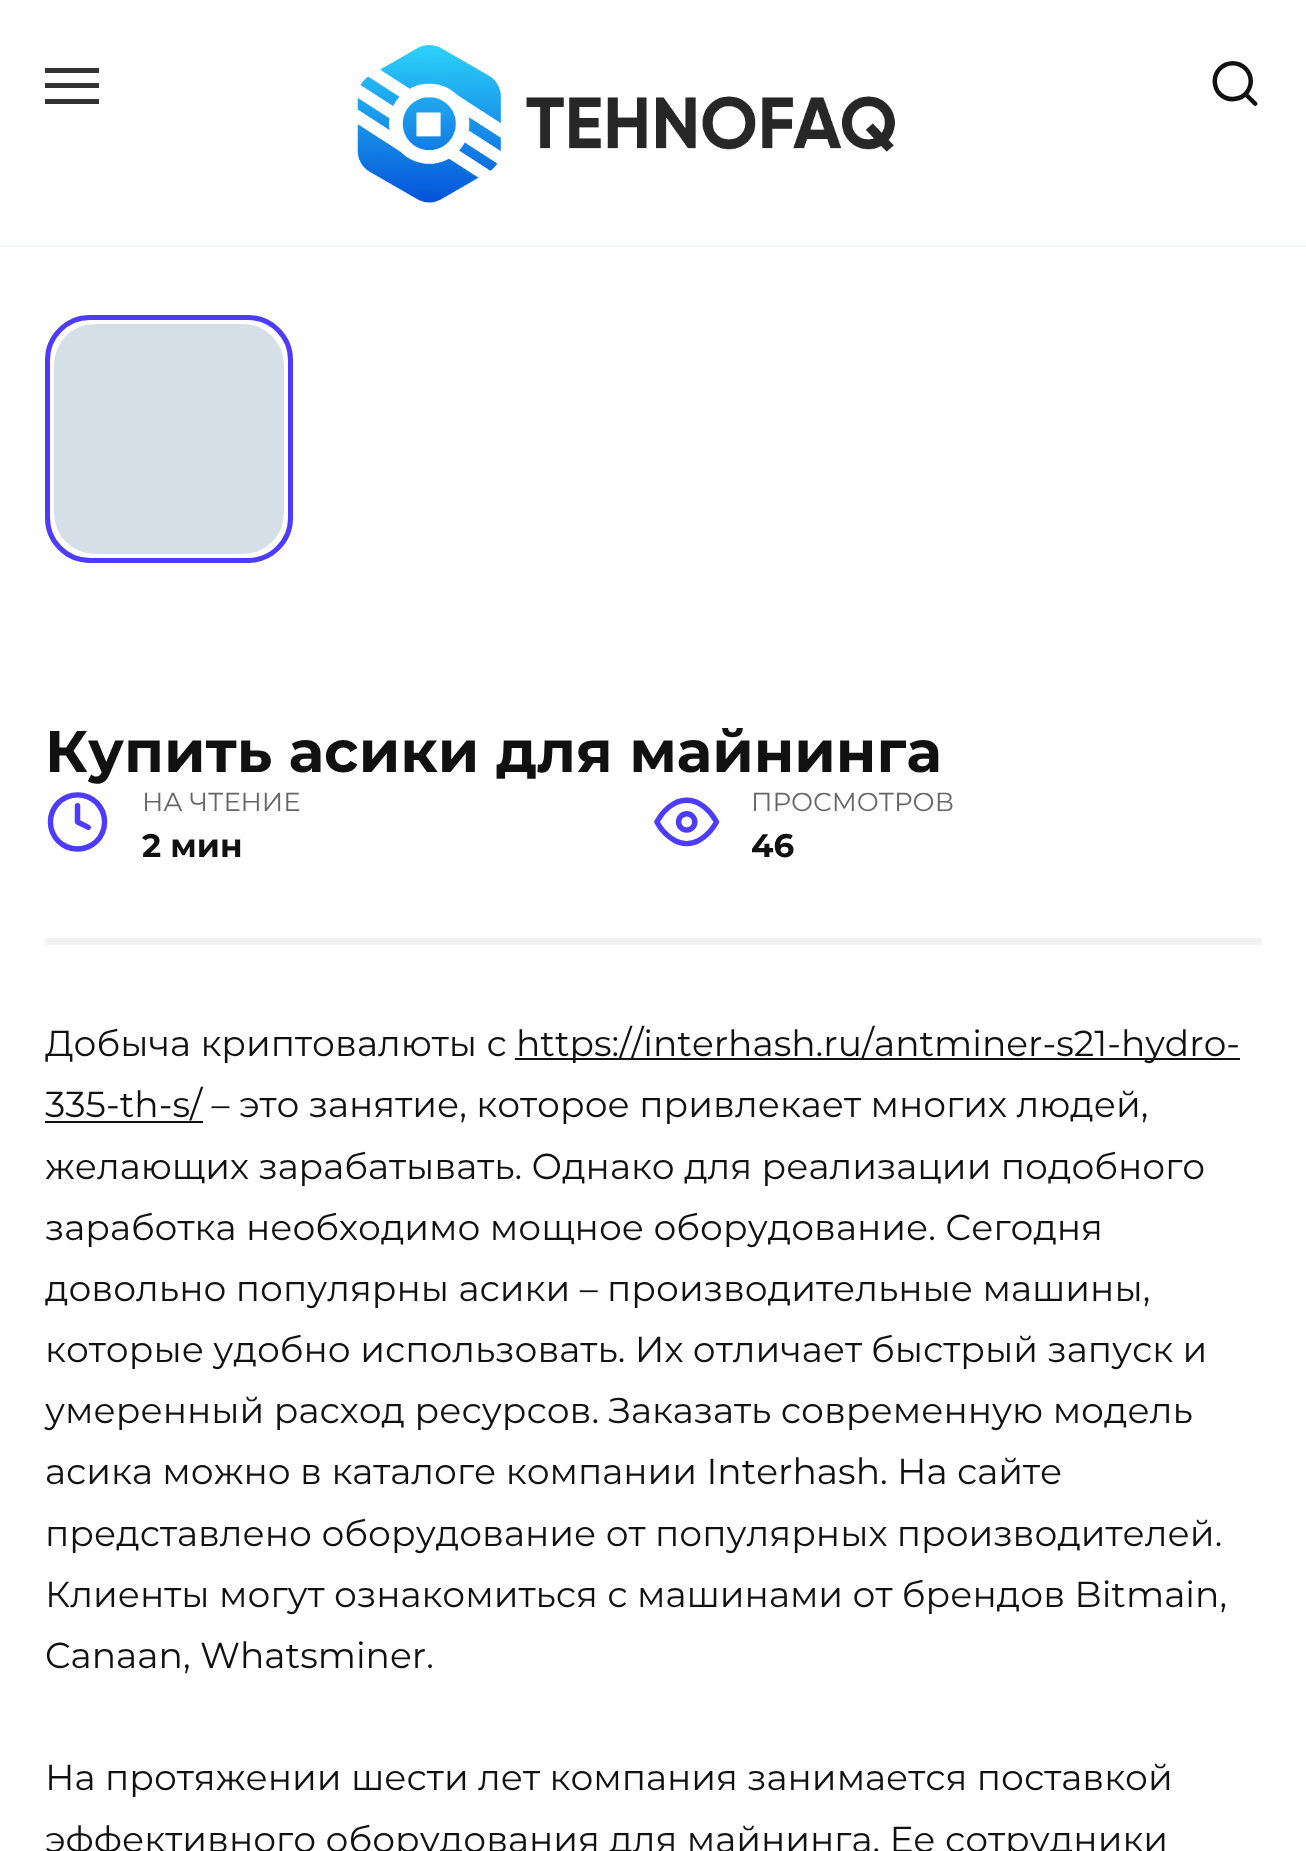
<svg xmlns="http://www.w3.org/2000/svg" width="1306" height="1851" viewBox="0 0 1306 1851">
  <style>*{font-kerning:none!important;font-variant-ligatures:none!important}</style>
  <rect width="100%" height="100%" fill="rgb(255,255,255)"/>
  <rect x="0" y="245" width="1306" height="2" fill="rgb(242,245,249)"/>
  <rect x="45" y="68" width="54" height="5" fill="rgb(51,51,51)"/>
  <rect x="45" y="83" width="54" height="5" fill="rgb(51,51,51)"/>
  <rect x="45" y="99" width="54" height="5" fill="rgb(51,51,51)"/>
  <image x="357" y="45" width="538" height="158" href="pic1.png"/>
  <text x="1208" y="106" font-family="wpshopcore" font-size="54" fill="rgb(17,17,17)">🔍</text>
  <rect x="47.5" y="317.5" width="243" height="243" rx="42.5" fill="none" stroke="rgb(77,59,254)" stroke-width="5"/>
  <rect x="54" y="324" width="230" height="230" rx="41" fill="rgb(213,223,232)"/>
  <text x="45" y="772" font-family="Montserrat" font-size="58.5" font-weight="bold" fill="rgb(17,17,17)">Купить асики для майнинга</text>
  <rect x="45" y="938" width="1217" height="7" fill="rgb(242,242,242)"/>
  <text x="45" y="849" font-family="wpshopcore" font-size="65" fill="rgb(77,59,254)">🕒</text>
  <text x="142" y="811" font-family="Montserrat" font-size="26" fill="rgb(102,102,102)">НА ЧТЕНИЕ</text>
  <text x="142" y="857" font-family="Montserrat" font-size="32.5" font-weight="bold" fill="rgb(17,17,17)">2 мин</text>
  <text x="654" y="849" font-family="wpshopcore" font-size="65" fill="rgb(77,59,254)">👀</text>
  <text x="751" y="811" font-family="Montserrat" font-size="26" fill="rgb(102,102,102)">ПРОСМОТРОВ</text>
  <text x="751" y="857" font-family="Montserrat" font-size="32.5" font-weight="bold" fill="rgb(17,17,17)">46</text>
  <text x="45" y="1056" font-family="Montserrat" font-size="36" fill="rgb(17,17,17)">Добыча криптовалюты с</text>
  <rect x="515" y="1058" width="725" height="2" fill="rgb(17,17,17)"/>
  <text x="516" y="1056" font-family="Montserrat" font-size="36" fill="rgb(17,17,17)">https://interhash.ru/antminer-s21-hydro-</text>
  <rect x="45" y="1121" width="158" height="2" fill="rgb(17,17,17)"/>
  <g font-family="Montserrat" font-size="36" fill="rgb(17,17,17)">
    <text>
      <tspan x="45" y="1117">335-th-s/ – это занятие, которое привлекает многих людей,</tspan>
      <tspan x="45" y="1179">желающих зарабатывать. Однако для реализации подобного</tspan>
      <tspan x="45" y="1240">заработка необходимо мощное оборудование. Сегодня</tspan>
      <tspan x="45" y="1301">довольно популярны асики – производительные машины,</tspan>
      <tspan x="45" y="1362">которые удобно использовать. Их отличает</tspan>
    </text>
    <text x="871" y="1362">быстрый запуск и</text>
    <text>
      <tspan x="45" y="1423">умеренный расход ресурсов. Заказать современную модель</tspan>
      <tspan x="45" y="1484">асика можно в каталоге компании Interhash. На сайте</tspan>
      <tspan x="45" y="1546">представлено оборудование от популярных производителей.</tspan>
      <tspan x="45" y="1607">Клиенты могут ознакомиться с машинами от брендов Bitmain,</tspan>
      <tspan x="45" y="1668">Canaan, Whatsminer.</tspan>
    </text>
    <text>
      <tspan x="45" y="1790">На протяжении шести лет компания занимается поставкой</tspan>
      <tspan x="45" y="1852">эффективного оборудования для майнинга. Ее сотрудники</tspan>
    </text>
  </g>
</svg>
